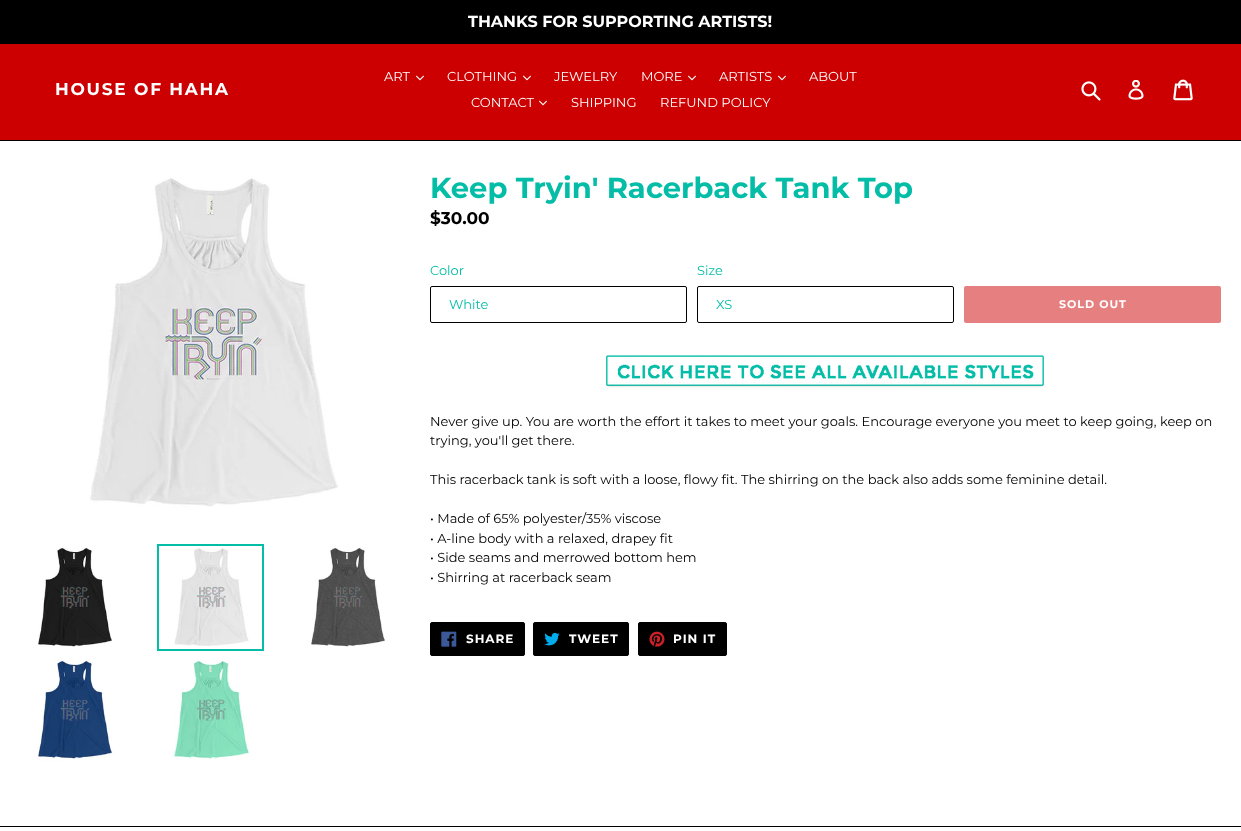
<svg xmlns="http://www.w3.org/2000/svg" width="1241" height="831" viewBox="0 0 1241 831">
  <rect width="100%" height="100%" fill="rgb(255,255,255)"/>
  <rect x="0" y="0" width="1241" height="44" fill="rgb(0,0,0)"/>
  <text x="468" y="27" font-family="Montserrat" font-size="16" font-weight="bold" fill="rgb(255,255,255)">THANKS FOR SUPPORTING ARTISTS!</text>
  <rect x="0" y="44" width="1241" height="96" fill="rgb(204,0,0)"/>
  <rect x="0" y="140" width="1241" height="1" fill="rgb(0,0,0)"/>
  <text x="55" y="95" font-family="Montserrat" font-size="17" font-weight="bold" letter-spacing="1.75" fill="rgb(255,255,255)">HOUSE OF HAHA</text>
  <text x="384" y="81" font-family="Montserrat" font-size="13" fill="rgb(255,255,255)">ART</text>
  <image x="416" y="75" width="8" height="6" href="pic1.png"/>
  <text x="447" y="81" font-family="Montserrat" font-size="13" fill="rgb(255,255,255)">CLOTHING</text>
  <image x="523" y="75" width="8" height="6" href="pic1.png"/>
  <g font-family="Montserrat" font-size="13" fill="rgb(255,255,255)">
    <text x="554" y="81">JEWELRY</text>
    <text x="641" y="81">MORE</text>
  </g>
  <image x="688" y="75" width="8" height="6" href="pic1.png"/>
  <text x="719" y="81" font-family="Montserrat" font-size="13" fill="rgb(255,255,255)">ARTISTS</text>
  <image x="778" y="75" width="8" height="6" href="pic1.png"/>
  <g font-family="Montserrat" font-size="13" fill="rgb(255,255,255)">
    <text x="809" y="81">ABOUT</text>
    <text x="471" y="107">CONTACT</text>
  </g>
  <image x="539" y="100" width="8" height="6" href="pic1.png"/>
  <g font-family="Montserrat" font-size="13" fill="rgb(255,255,255)">
    <text x="571" y="107">SHIPPING</text>
    <text x="660" y="107">REFUND POLICY</text>
  </g>
  <image x="1081" y="81" width="20" height="20" href="pic2.png"/>
  <image x="1128" y="80" width="16" height="20" href="pic3.png"/>
  <image x="1173" y="79" width="20" height="22" href="pic4.png"/>
  <image x="90" y="177" width="248" height="330" href="pic5.png"/>
  <image x="38" y="547" width="74" height="100" href="pic6.png"/>
  <rect x="158" y="545" width="105" height="105" fill="none" stroke="rgb(4,189,167)" stroke-width="2"/>
  <image x="174" y="548" width="75" height="98" href="pic7.png"/>
  <image x="311" y="546" width="74" height="101" href="pic8.png"/>
  <image x="38" y="659" width="77" height="102" href="pic9.png"/>
  <image x="174" y="659" width="75" height="101" href="pic10.png"/>
  <text x="430" y="198" font-family="Montserrat" font-size="29" font-weight="bold" fill="rgb(4,189,167)">Keep Tryin' Racerback Tank Top</text>
  <text x="430" y="224" font-family="Montserrat" font-size="17" font-weight="bold" fill="rgb(0,0,0)">$30.00</text>
  <text x="430" y="275" font-family="Montserrat" font-size="13" fill="rgb(4,189,167)">Color</text>
  <rect x="430.5" y="286.5" width="256" height="36" rx="1.5" fill="none" stroke="rgb(0,0,0)"/>
  <g font-family="Montserrat" font-size="13" fill="rgb(4,189,167)">
    <text x="449" y="309">White</text>
    <text x="697" y="275">Size</text>
  </g>
  <rect x="697.5" y="286.5" width="256" height="36" rx="1.5" fill="none" stroke="rgb(0,0,0)"/>
  <text x="716" y="309" font-family="Montserrat" font-size="13" fill="rgb(4,189,167)">XS</text>
  <rect x="964" y="286" width="257" height="37" rx="2" fill="rgb(230,128,128)"/>
  <text x="1059" y="308" font-family="Montserrat" font-size="11" font-weight="bold" letter-spacing="1" fill="rgb(255,255,255)">SOLD OUT</text>
  <image x="606" y="355" width="438" height="33" href="pic11.png"/>
  <g font-family="Montserrat" font-size="13" fill="rgb(0,0,0)">
    <text>
      <tspan x="430" y="426">Never give up. You are worth the effort it takes to meet your goals. Encourage everyone you meet to keep going, keep on</tspan>
      <tspan x="430" y="445">trying, you'll get there.</tspan>
    </text>
    <text x="430" y="484">This racerback tank is soft with a loose, flowy fit. The shirring on the back also adds some feminine detail.</text>
    <text>
      <tspan x="430" y="523">• Made of 65% polyester/35% viscose</tspan>
      <tspan x="430" y="543">• A-line body with a relaxed, drapey fit</tspan>
      <tspan x="430" y="562">• Side seams and merrowed bottom hem</tspan>
      <tspan x="430" y="582">• Shirring at racerback seam</tspan>
    </text>
  </g>
  <rect x="430.5" y="622.5" width="94" height="33" rx="1.5" fill="rgb(0,0,0)" stroke="rgb(0,0,0)"/>
  <image x="441" y="631" width="16" height="16" href="pic12.png"/>
  <text x="466" y="643" font-family="Montserrat" font-size="12" font-weight="bold" letter-spacing="1" fill="rgb(255,255,255)">SHARE</text>
  <rect x="533.5" y="622.5" width="95" height="33" rx="1.5" fill="rgb(0,0,0)" stroke="rgb(0,0,0)"/>
  <image x="544" y="632" width="16" height="14" href="pic13.png"/>
  <text x="569" y="643" font-family="Montserrat" font-size="12" font-weight="bold" letter-spacing="1" fill="rgb(255,255,255)">TWEET</text>
  <rect x="638.5" y="622.5" width="88" height="33" rx="1.5" fill="rgb(0,0,0)" stroke="rgb(0,0,0)"/>
  <image x="649" y="631" width="16" height="16" href="pic14.png"/>
  <text x="673" y="643" font-family="Montserrat" font-size="12" font-weight="bold" letter-spacing="1" fill="rgb(255,255,255)">PIN IT</text>
  <rect x="0" y="826" width="1241" height="1" fill="rgb(0,0,0)"/>
</svg>
